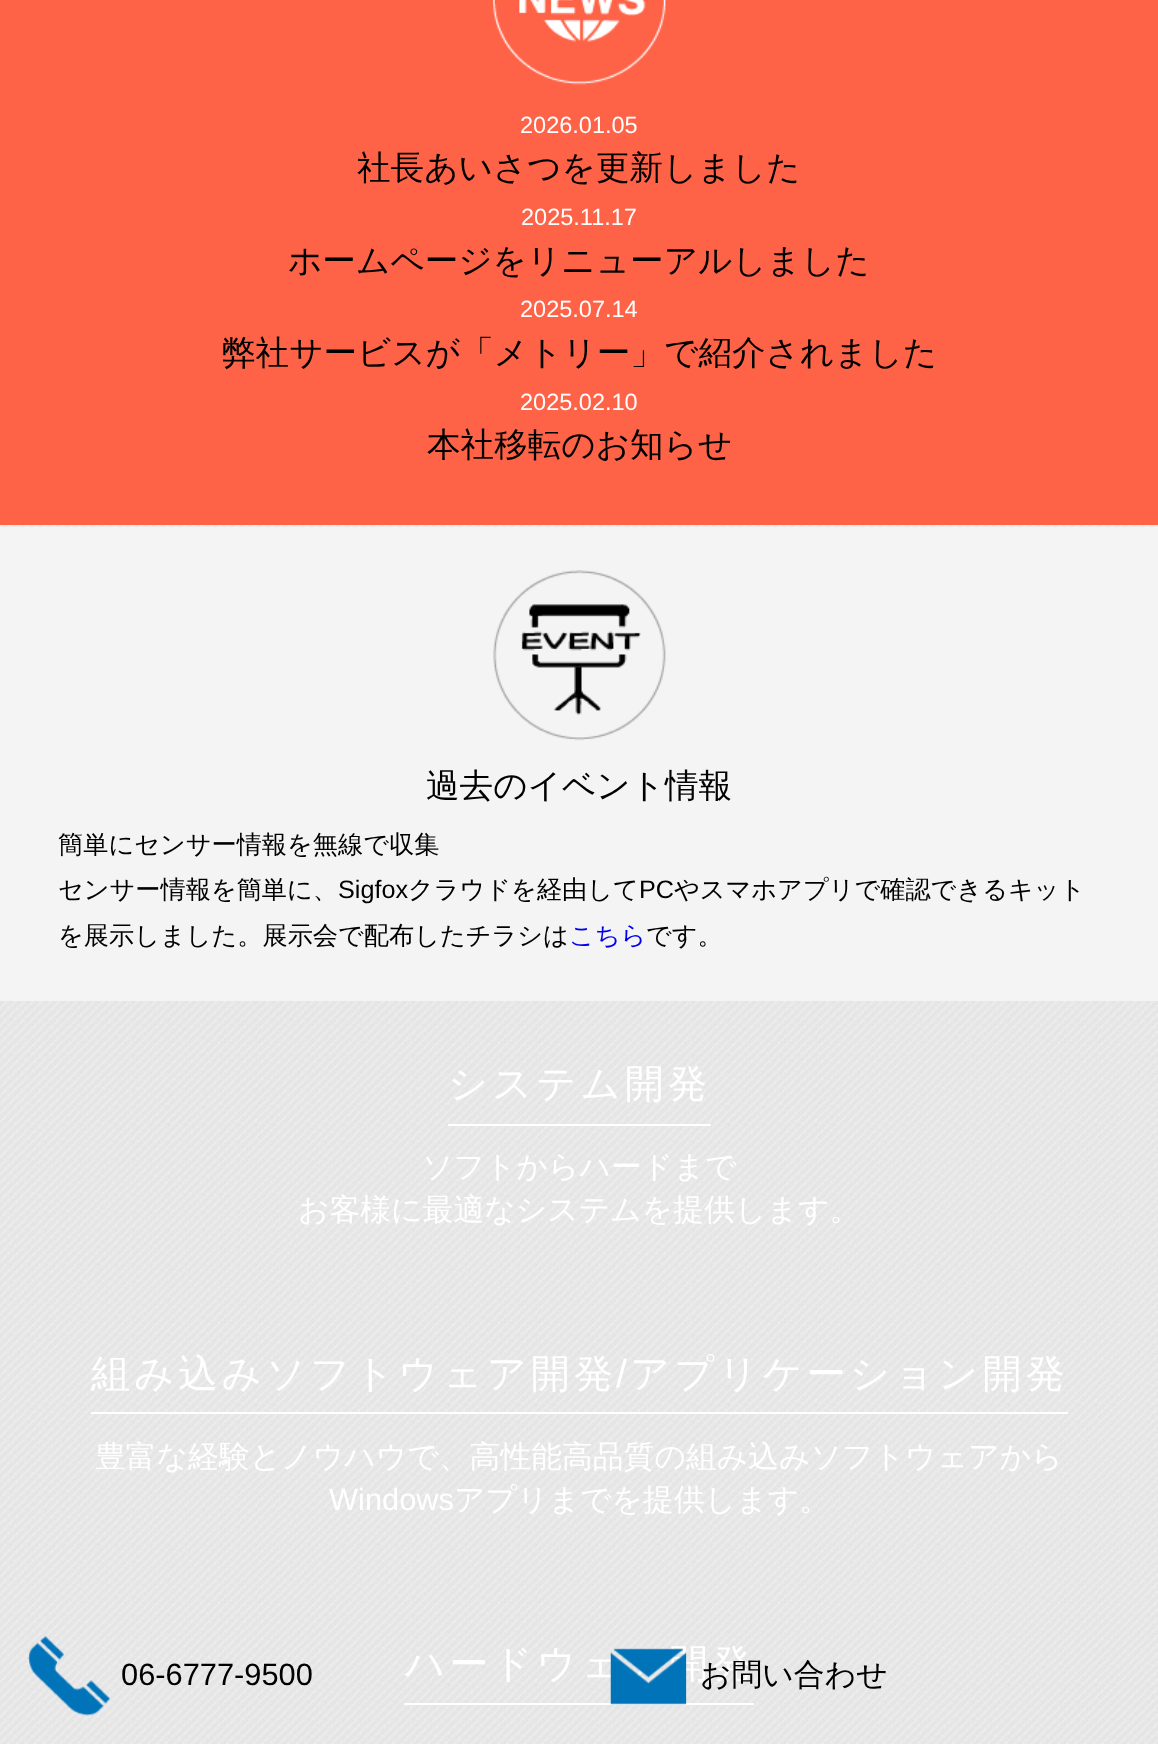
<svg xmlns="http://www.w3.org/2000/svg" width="1158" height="1744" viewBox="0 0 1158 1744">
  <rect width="100%" height="100%" fill="rgb(255,255,255)"/>
  <image x="0" y="525" width="1158" height="1219" href="pic1.png"/>
  <rect x="0" y="0" width="1158" height="525" fill="rgb(255,99,71)"/>
  <image x="493" y="0" width="173" height="85" href="pic2.png"/>
  <text x="520" y="133" font-family="Liberation Sans" font-size="23.5" fill="rgb(255,255,255)">2026.01.05</text>
  <text x="357" y="179" font-family="WenQuanYi Zen Hei" font-size="33.6" font-weight="500" fill="rgb(0,0,0)">社長あいさつを更新しました</text>
  <text x="521" y="225" font-family="Liberation Sans" font-size="23.5" fill="rgb(255,255,255)">2025.11.17</text>
  <text x="288" y="272" font-family="WenQuanYi Zen Hei" font-size="33.6" font-weight="500" fill="rgb(0,0,0)">ホームページをリニューアルしました</text>
  <text x="520" y="317" font-family="Liberation Sans" font-size="23.5" fill="rgb(255,255,255)">2025.07.14</text>
  <text x="222" y="364" font-family="WenQuanYi Zen Hei" font-size="33.6" font-weight="500" fill="rgb(0,0,0)">弊社サービスが「メトリー」で紹介されました</text>
  <text x="520" y="410" font-family="Liberation Sans" font-size="23.5" fill="rgb(255,255,255)">2025.02.10</text>
  <text x="427" y="456" font-family="WenQuanYi Zen Hei" font-size="33.6" font-weight="500" fill="rgb(0,0,0)">本社移転のお知らせ</text>
  <rect x="0" y="527" width="1158" height="474" fill="rgb(244,244,244)"/>
  <image x="493" y="570" width="173" height="171" href="pic3.png"/>
  <text x="426" y="797" font-family="WenQuanYi Zen Hei" font-size="33.6" font-weight="500" fill="rgb(0,0,0)">過去のイベント情報</text>
  <g font-family="WenQuanYi Zen Hei" font-size="25.2" font-weight="500" fill="rgb(0,0,0)">
    <text>
      <tspan x="58" y="853">簡単にセンサー情報を無線で収集</tspan>
      <tspan x="58" y="898">センサー情報を簡単に、</tspan>
    </text>
  </g>
  <text x="338" y="898" font-family="Liberation Sans" font-size="25.2" fill="rgb(0,0,0)">Sigfox</text>
  <text x="408" y="898" font-family="WenQuanYi Zen Hei" font-size="25.2" font-weight="500" fill="rgb(0,0,0)">クラウドを経由して</text>
  <text x="639" y="898" font-family="Liberation Sans" font-size="25.2" fill="rgb(0,0,0)">PC</text>
  <g font-family="WenQuanYi Zen Hei" font-size="25.2" font-weight="500" fill="rgb(0,0,0)">
    <text x="674" y="898">やスマホアプリで確認できるキット</text>
    <text x="58" y="944">を展示しました。展示会で配布したチラシは</text>
  </g>
  <text x="569" y="944" font-family="WenQuanYi Zen Hei" font-size="25.2" font-weight="500" fill="rgb(0,0,238)">こちら</text>
  <text x="646" y="944" font-family="WenQuanYi Zen Hei" font-size="25.2" font-weight="500" fill="rgb(0,0,0)">です。</text>
  <rect x="448" y="1124" width="263" height="2" fill="rgb(255,255,255)"/>
  <text x="448" y="1097" font-family="WenQuanYi Zen Hei" font-size="39.25" font-weight="500" letter-spacing="4" fill="rgb(255,255,255)">システム開発</text>
  <g font-family="WenQuanYi Zen Hei" font-size="30.8" font-weight="500" fill="rgb(255,255,255)">
    <text x="422" y="1177">ソフトからハードまで</text>
    <text x="298" y="1220">お客様に最適なシステムを提供します。</text>
  </g>
  <rect x="91" y="1412" width="977" height="2" fill="rgb(255,255,255)"/>
  <text x="91" y="1387" font-family="WenQuanYi Zen Hei" font-size="39.25" font-weight="500" letter-spacing="4" fill="rgb(255,255,255)">組み込みソフトウェア開発</text>
  <text x="616" y="1387" font-family="Liberation Sans" font-size="39.25" letter-spacing="4" fill="rgb(255,255,255)">/</text>
  <text x="630" y="1387" font-family="WenQuanYi Zen Hei" font-size="39.25" font-weight="500" letter-spacing="4" fill="rgb(255,255,255)">アプリケーション開発</text>
  <text x="95" y="1467" font-family="WenQuanYi Zen Hei" font-size="30.8" font-weight="500" fill="rgb(255,255,255)">豊富な経験とノウハウで、高性能高品質の組み込みソフトウェアから</text>
  <text x="329" y="1510" font-family="Liberation Sans" font-size="30.8" fill="rgb(255,255,255)">Windows</text>
  <text x="454" y="1510" font-family="WenQuanYi Zen Hei" font-size="30.8" font-weight="500" fill="rgb(255,255,255)">アプリまでを提供します。</text>
  <rect x="404" y="1703" width="350" height="2" fill="rgb(255,255,255)"/>
  <text x="405" y="1677" font-family="WenQuanYi Zen Hei" font-size="39.25" font-weight="500" letter-spacing="4" fill="rgb(255,255,255)">ハードウェア開発</text>
  <image x="28" y="1636" width="83" height="80" href="pic4.png"/>
  <text x="121" y="1685" font-family="Liberation Sans" font-size="30.8" fill="rgb(0,0,0)">06-6777-9500</text>
  <image x="610" y="1648" width="77" height="57" href="pic5.png"/>
  <text x="700" y="1685" font-family="WenQuanYi Zen Hei" font-size="30.8" font-weight="500" fill="rgb(0,0,0)">お問い合わせ</text>
</svg>
